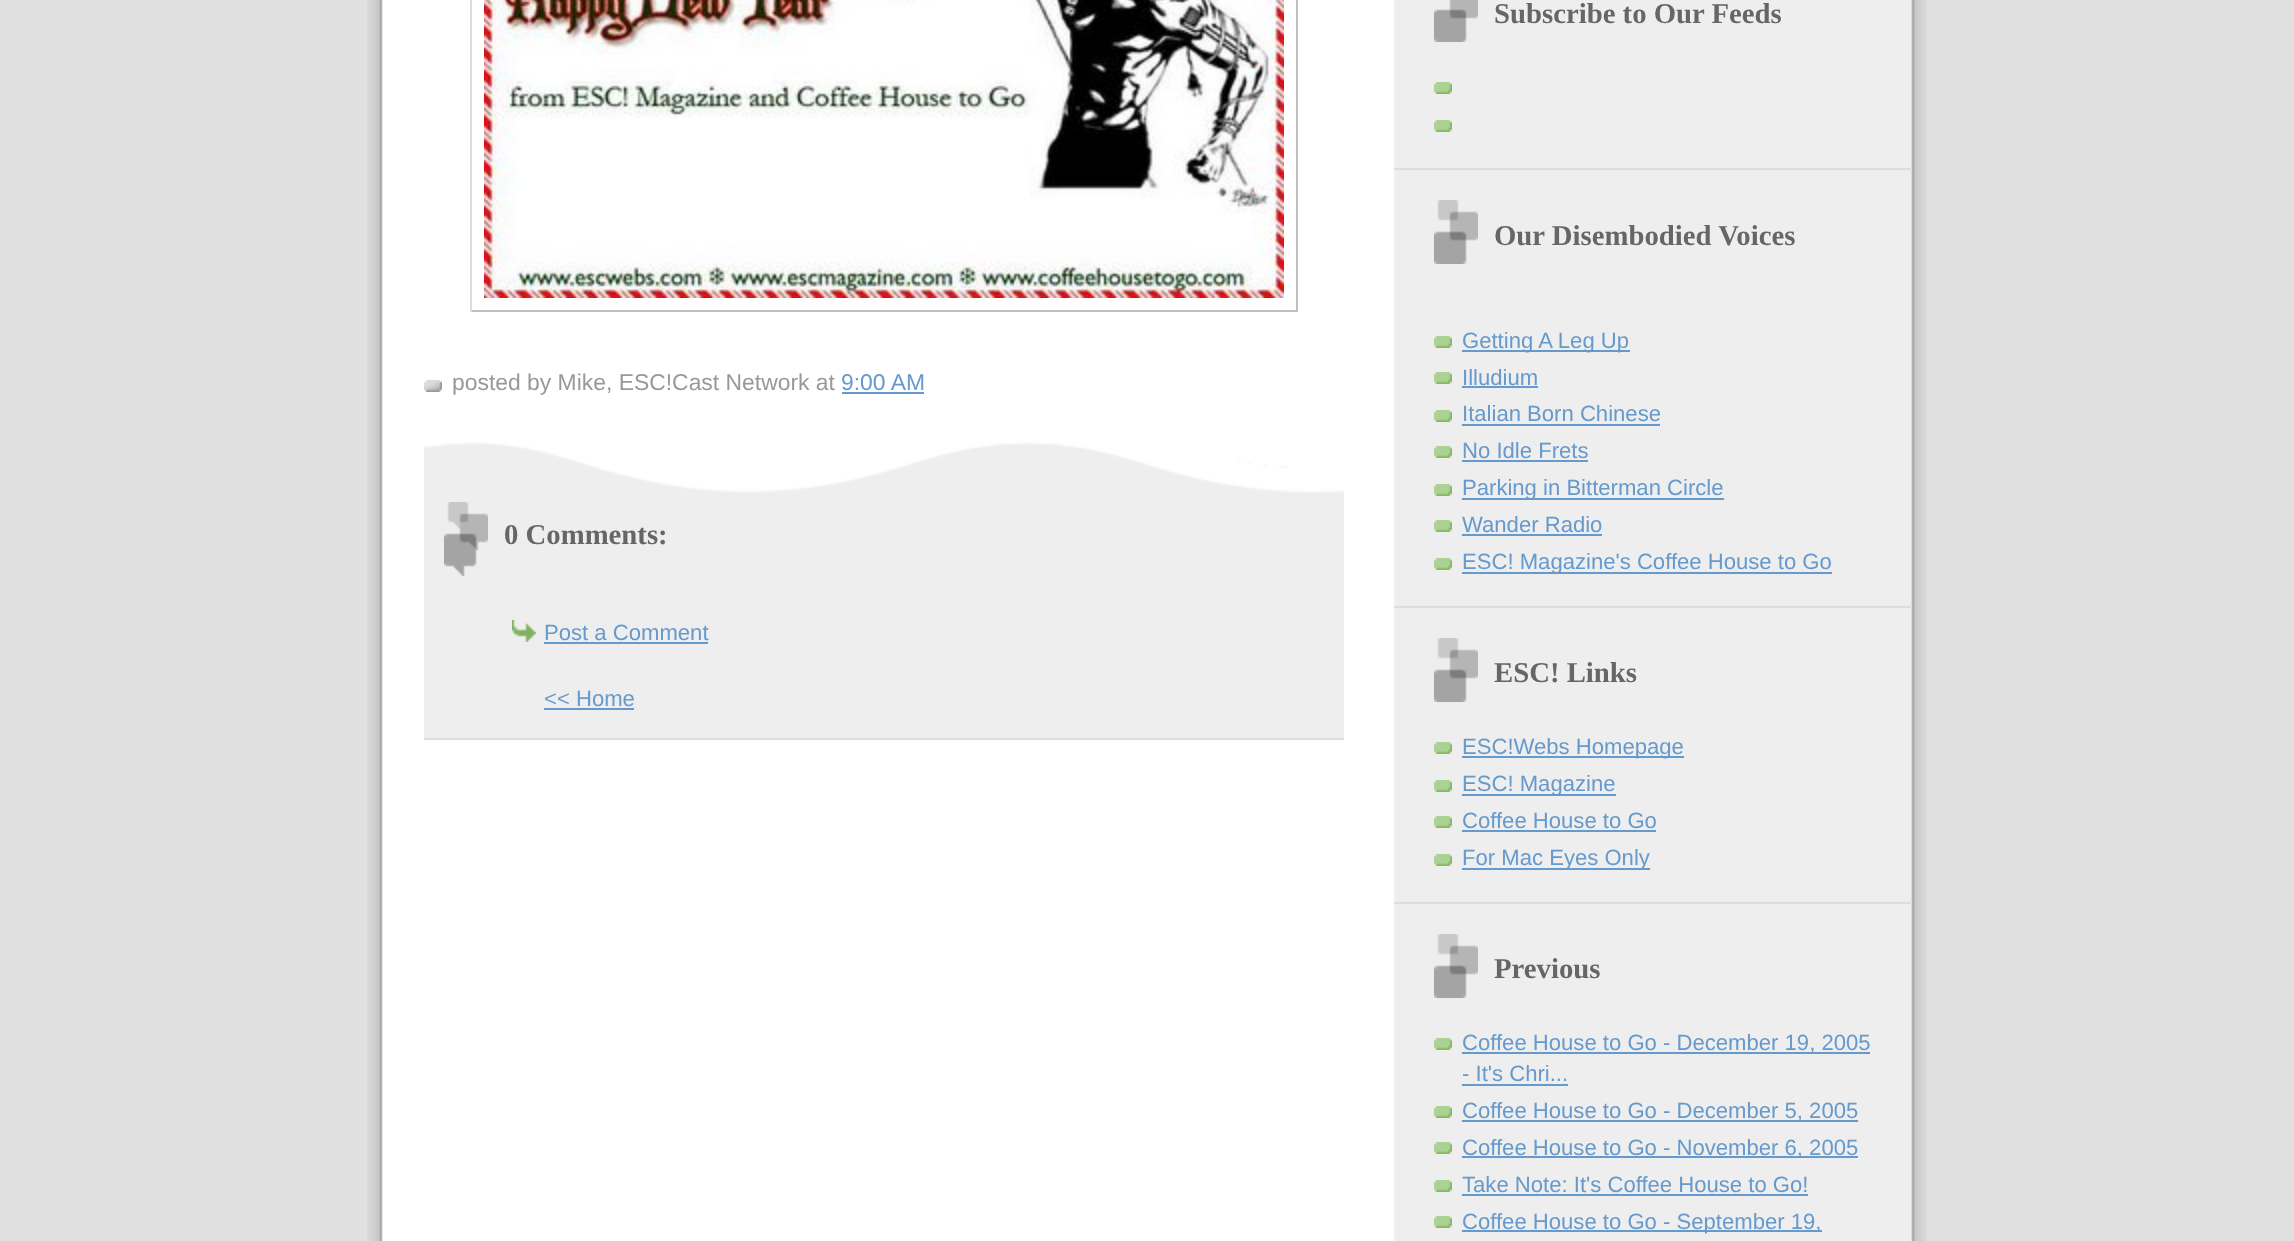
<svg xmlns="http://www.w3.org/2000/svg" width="2294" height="1241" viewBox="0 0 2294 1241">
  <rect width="100%" height="100%" fill="rgb(224,224,224)"/>
  <image x="367" y="0" width="1560" height="1241" href="pic1.png"/>
  <rect x="1296" y="0" width="2" height="312" fill="rgb(192,192,192)"/>
  <rect x="470" y="310" width="828" height="2" fill="rgb(192,192,192)"/>
  <rect x="470" y="0" width="2" height="312" fill="rgb(221,221,221)"/>
  <image x="484" y="0" width="800" height="298" href="pic2.png"/>
  <image x="424" y="380" width="18" height="12" href="pic3.png"/>
  <text x="452" y="390" font-family="Liberation Sans" font-size="22.9" fill="rgb(153,153,153)">posted by Mike, ESC!Cast Network at</text>
  <text x="841" y="390" font-family="Liberation Sans" font-size="22.9" fill="rgb(102,153,204)">9:00 AM</text>
  <rect x="842" y="392" width="82" height="2" fill="rgb(102,153,204)"/>
  <rect x="424" y="443" width="920" height="295" fill="rgb(238,238,238)"/>
  <image x="424" y="442" width="920" height="51" href="pic4.png"/>
  <image x="444" y="502" width="44" height="74" href="pic5.png"/>
  <text x="504" y="544" font-family="Liberation Serif" font-size="28.75" font-weight="bold" fill="rgb(102,102,102)">0 Comments:</text>
  <image x="512" y="620" width="24" height="22" href="pic6.png"/>
  <rect x="424" y="738" width="920" height="2" fill="rgb(221,221,221)"/>
  <text x="544" y="640" font-family="Liberation Sans" font-size="22.1" fill="rgb(102,153,204)">Post a Comment</text>
  <rect x="544" y="642" width="164" height="2" fill="rgb(102,153,204)"/>
  <text x="544" y="706" font-family="Liberation Sans" font-size="22.1" fill="rgb(102,153,204)">&lt;&lt; Home</text>
  <rect x="544" y="708" width="90" height="2" fill="rgb(102,153,204)"/>
  <image x="1434" y="0" width="44" height="42" href="pic7.png"/>
  <text x="1494" y="23" font-family="Liberation Serif" font-size="28.75" font-weight="bold" fill="rgb(102,102,102)">Subscribe to Our Feeds</text>
  <rect x="1394" y="168" width="518" height="2" fill="rgb(221,221,221)"/>
  <image x="1434" y="82" width="18" height="12" href="pic8.png"/>
  <image x="1434" y="120" width="18" height="12" href="pic8.png"/>
  <image x="1434" y="200" width="44" height="64" href="pic9.png"/>
  <text x="1494" y="245" font-family="Liberation Serif" font-size="28.75" font-weight="bold" fill="rgb(102,102,102)">Our Disembodied Voices</text>
  <rect x="1394" y="606" width="518" height="2" fill="rgb(221,221,221)"/>
  <image x="1434" y="336" width="18" height="12" href="pic8.png"/>
  <rect x="1462" y="350" width="168" height="2" fill="rgb(102,153,204)"/>
  <text x="1462" y="348" font-family="Liberation Sans" font-size="22.1" fill="rgb(102,153,204)">Getting A Leg Up</text>
  <image x="1434" y="372" width="18" height="12" href="pic8.png"/>
  <text x="1462" y="385" font-family="Liberation Sans" font-size="22.1" fill="rgb(102,153,204)">Illudium</text>
  <rect x="1462" y="386" width="76" height="2" fill="rgb(102,153,204)"/>
  <image x="1434" y="410" width="18" height="12" href="pic8.png"/>
  <text x="1462" y="421" font-family="Liberation Sans" font-size="22.1" fill="rgb(102,153,204)">Italian Born Chinese</text>
  <rect x="1462" y="424" width="198" height="2" fill="rgb(102,153,204)"/>
  <image x="1434" y="446" width="18" height="12" href="pic8.png"/>
  <text x="1462" y="458" font-family="Liberation Sans" font-size="22.1" fill="rgb(102,153,204)">No Idle Frets</text>
  <rect x="1462" y="460" width="126" height="2" fill="rgb(102,153,204)"/>
  <image x="1434" y="484" width="18" height="12" href="pic8.png"/>
  <rect x="1462" y="498" width="262" height="2" fill="rgb(102,153,204)"/>
  <text x="1462" y="495" font-family="Liberation Sans" font-size="22.1" fill="rgb(102,153,204)">Parking in Bitterman Circle</text>
  <image x="1434" y="520" width="18" height="12" href="pic8.png"/>
  <text x="1462" y="532" font-family="Liberation Sans" font-size="22.1" fill="rgb(102,153,204)">Wander Radio</text>
  <rect x="1462" y="534" width="140" height="2" fill="rgb(102,153,204)"/>
  <image x="1434" y="558" width="18" height="12" href="pic8.png"/>
  <rect x="1462" y="572" width="370" height="2" fill="rgb(102,153,204)"/>
  <text x="1462" y="569" font-family="Liberation Sans" font-size="22.1" fill="rgb(102,153,204)">ESC! Magazine's Coffee House to Go</text>
  <image x="1434" y="638" width="44" height="64" href="pic9.png"/>
  <text x="1494" y="682" font-family="Liberation Serif" font-size="28.75" font-weight="bold" fill="rgb(102,102,102)">ESC! Links</text>
  <rect x="1394" y="902" width="518" height="2" fill="rgb(221,221,221)"/>
  <image x="1434" y="742" width="18" height="12" href="pic8.png"/>
  <rect x="1462" y="756" width="222" height="2" fill="rgb(102,153,204)"/>
  <text x="1462" y="754" font-family="Liberation Sans" font-size="22.1" fill="rgb(102,153,204)">ESC!Webs Homepage</text>
  <image x="1434" y="780" width="18" height="12" href="pic8.png"/>
  <rect x="1462" y="794" width="154" height="2" fill="rgb(102,153,204)"/>
  <text x="1462" y="791" font-family="Liberation Sans" font-size="22.1" fill="rgb(102,153,204)">ESC! Magazine</text>
  <image x="1434" y="816" width="18" height="12" href="pic8.png"/>
  <text x="1462" y="828" font-family="Liberation Sans" font-size="22.1" fill="rgb(102,153,204)">Coffee House to Go</text>
  <rect x="1462" y="830" width="194" height="2" fill="rgb(102,153,204)"/>
  <image x="1434" y="854" width="18" height="12" href="pic8.png"/>
  <rect x="1462" y="868" width="188" height="2" fill="rgb(102,153,204)"/>
  <text x="1462" y="865" font-family="Liberation Sans" font-size="22.1" fill="rgb(102,153,204)">For Mac Eyes Only</text>
  <image x="1434" y="934" width="44" height="64" href="pic9.png"/>
  <text x="1494" y="978" font-family="Liberation Serif" font-size="28.75" font-weight="bold" fill="rgb(102,102,102)">Previous</text>
  <image x="1434" y="1038" width="18" height="12" href="pic8.png"/>
  <rect x="1462" y="1052" width="408" height="2" fill="rgb(102,153,204)"/>
  <g font-family="Liberation Sans" font-size="22.1" fill="rgb(102,153,204)">
    <text>
      <tspan x="1462" y="1050">Coffee House to Go - December 19, 2005</tspan>
      <tspan x="1462" y="1081">- It's Chri...</tspan>
    </text>
  </g>
  <rect x="1462" y="1084" width="106" height="2" fill="rgb(102,153,204)"/>
  <image x="1434" y="1106" width="18" height="12" href="pic8.png"/>
  <rect x="1462" y="1120" width="396" height="2" fill="rgb(102,153,204)"/>
  <text x="1462" y="1118" font-family="Liberation Sans" font-size="22.1" fill="rgb(102,153,204)">Coffee House to Go - December 5, 2005</text>
  <image x="1434" y="1142" width="18" height="12" href="pic8.png"/>
  <rect x="1462" y="1156" width="396" height="2" fill="rgb(102,153,204)"/>
  <text x="1462" y="1155" font-family="Liberation Sans" font-size="22.1" fill="rgb(102,153,204)">Coffee House to Go - November 6, 2005</text>
  <image x="1434" y="1180" width="18" height="12" href="pic8.png"/>
  <text x="1462" y="1192" font-family="Liberation Sans" font-size="22.1" fill="rgb(102,153,204)">Take Note: It's Coffee House to Go!</text>
  <rect x="1462" y="1194" width="346" height="2" fill="rgb(102,153,204)"/>
  <image x="1434" y="1216" width="18" height="12" href="pic8.png"/>
  <rect x="1462" y="1230" width="360" height="2" fill="rgb(102,153,204)"/>
  <text x="1462" y="1229" font-family="Liberation Sans" font-size="22.1" fill="rgb(102,153,204)">Coffee House to Go - September 19,</text>
</svg>
